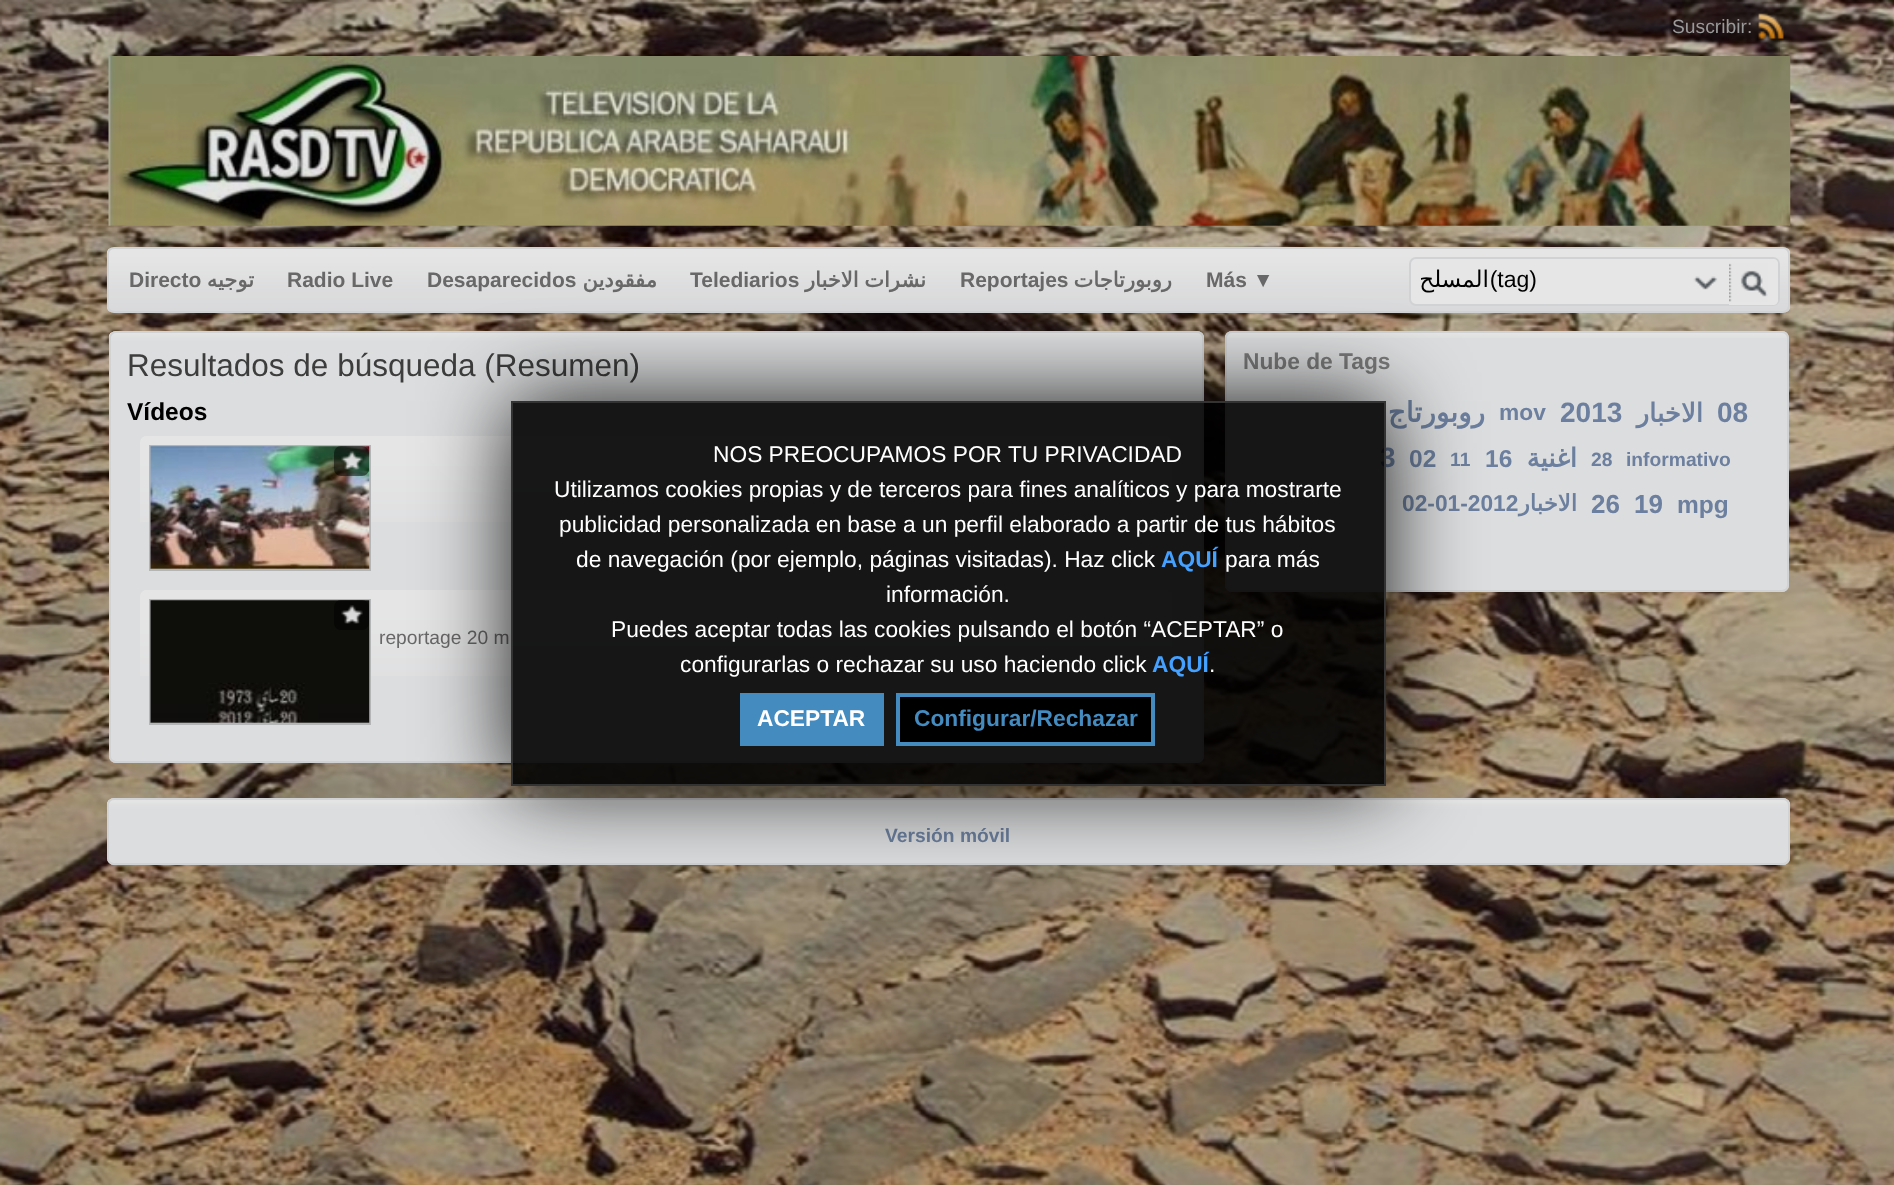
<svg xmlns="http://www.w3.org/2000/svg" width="1894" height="1185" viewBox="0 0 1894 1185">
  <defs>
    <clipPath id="clip1"><path d="M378 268H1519V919H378ZM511 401H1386V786H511Z" clip-rule="evenodd"/></clipPath>
  </defs>
  <rect width="100%" height="100%" fill="rgb(255,255,255)"/>
  <image x="0" y="865" width="1894" height="320" href="pic1.png"/>
  <image x="0" y="0" width="1894" height="865" href="pic2.png"/>
  <text x="1672" y="33" font-family="Liberation Sans" font-size="19.25" fill="rgb(153,153,153)">Suscribir:</text>
  <image x="1758" y="13" width="26" height="26" href="pic3.png"/>
  <image x="108" y="56" width="1683" height="170" href="pic4.png"/>
  <image x="106" y="248" width="1685" height="64" href="pic5.png"/>
  <rect x="108" y="248" width="1681" height="64" rx="6" fill="none" stroke="rgb(209,210,212)" stroke-width="2"/>
  <text x="129" y="287" font-family="Liberation Sans" font-size="21" font-weight="bold" fill="rgb(104,104,104)">Directo</text>
  <text x="254" y="287" font-family="DejaVu Sans" font-size="21" font-weight="bold" direction="rtl" fill="rgb(104,104,104)">توجيه</text>
  <g font-family="Liberation Sans" font-size="21" font-weight="bold" fill="rgb(104,104,104)">
    <text x="287" y="287">Radio Live</text>
    <text x="427" y="287">Desaparecidos</text>
  </g>
  <text x="657" y="287" font-family="DejaVu Sans" font-size="21" font-weight="bold" direction="rtl" fill="rgb(104,104,104)">مفقودين</text>
  <text x="690" y="287" font-family="Liberation Sans" font-size="21" font-weight="bold" fill="rgb(104,104,104)">Telediarios</text>
  <text x="926" y="287" word-spacing="-1" font-family="DejaVu Sans" font-size="21" font-weight="bold" direction="rtl" fill="rgb(104,104,104)">نشرات الاخبار</text>
  <text x="960" y="287" font-family="Liberation Sans" font-size="21" font-weight="bold" fill="rgb(104,104,104)">Reportajes</text>
  <text x="1172" y="287" font-family="DejaVu Sans" font-size="21" font-weight="bold" direction="rtl" fill="rgb(104,104,104)">روبورتاجات</text>
  <text x="1206" y="287" font-family="Liberation Sans" font-size="21" font-weight="bold" fill="rgb(104,104,104)">Más ▼</text>
  <rect x="1410" y="258" width="369" height="47" rx="6" fill="rgb(230,230,230)" stroke="rgb(209,210,212)" stroke-width="2"/>
  <text x="1489" y="287" font-family="DejaVu Sans" font-size="23" direction="rtl" fill="rgb(0,0,0)">المسلح</text>
  <text x="1537" y="287" font-family="Liberation Sans" font-size="23" direction="rtl" fill="rgb(0,0,0)">(tag)</text>
  <image x="1693" y="276" width="25" height="14" href="pic6.png"/>
  <path d="M1729 259H1773C1776 259 1778 261 1778 264V300C1778 303 1776 305 1773 305H1729Z" fill="rgb(230,230,230)"/>
  <image x="1729" y="263" width="39" height="39" href="pic7.png"/>
  <rect x="109" y="331" width="1095" height="432" rx="7" fill="rgb(220,221,222)"/>
  <image x="108" y="332" width="1096" height="11" href="pic8.png"/>
  <rect x="110" y="332" width="1093" height="430" rx="6" fill="none" stroke="rgb(209,210,212)" stroke-width="2"/>
  <text x="127" y="376" font-family="Liberation Sans" font-size="31.5" fill="rgb(61,61,61)">Resultados de búsqueda (Resumen)</text>
  <text x="127" y="420" font-family="Liberation Sans" font-size="24.5" font-weight="bold" fill="rgb(0,0,0)">Vídeos</text>
  <image x="140" y="436" width="1032" height="86" href="pic9.png"/>
  <rect x="150" y="446" width="220" height="124" fill="none" stroke="rgb(180,181,183)" stroke-width="2"/>
  <image x="150" y="446" width="220" height="123" href="pic10.png"/>
  <rect x="334" y="446" width="35" height="30" rx="7" fill="rgba(0,0,0,0.5)"/>
  <image x="341" y="451" width="22" height="19" href="pic11.png"/>
  <image x="140" y="590" width="1032" height="86" href="pic9.png"/>
  <rect x="150" y="600" width="220" height="124" fill="none" stroke="rgb(180,181,183)" stroke-width="2"/>
  <image x="150" y="600" width="220" height="123" href="pic12.png"/>
  <rect x="334" y="600" width="35" height="30" rx="7" fill="rgba(0,0,0,0.5)"/>
  <image x="341" y="605" width="22" height="19" href="pic13.png"/>
  <text x="379" y="644" font-family="Liberation Sans" font-size="19.25" fill="rgb(104,104,104)">reportage 20 m</text>
  <rect x="1225" y="331" width="564" height="261" rx="7" fill="rgb(220,221,222)"/>
  <image x="1225" y="332" width="563" height="6" href="pic14.png"/>
  <rect x="1226" y="332" width="562" height="259" rx="6" fill="none" stroke="rgb(209,210,212)" stroke-width="2"/>
  <text x="1243" y="369" font-family="Liberation Sans" font-size="22.75" font-weight="bold" fill="rgb(122,122,122)">Nube de Tags</text>
  <text x="1485" y="422" font-family="DejaVu Sans" font-size="28" font-weight="bold" direction="rtl" fill="rgb(108,127,158)">روبورتاج</text>
  <text x="1499" y="420" font-family="Liberation Sans" font-size="22.75" font-weight="bold" fill="rgb(108,127,158)">mov</text>
  <text x="1560" y="422" font-family="Liberation Sans" font-size="28" font-weight="bold" fill="rgb(108,127,158)">2013</text>
  <text x="1703" y="422" font-family="DejaVu Sans" font-size="26" font-weight="bold" direction="rtl" fill="rgb(108,127,158)">الاخبار</text>
  <g font-family="Liberation Sans" font-size="28" font-weight="bold" fill="rgb(108,127,158)">
    <text x="1717" y="422">08</text>
    <text x="1380" y="467">3</text>
  </g>
  <text x="1409" y="467" font-family="Liberation Sans" font-size="24.5" font-weight="bold" fill="rgb(108,127,158)">02</text>
  <text x="1450" y="466" font-family="Liberation Sans" font-size="19.25" font-weight="bold" fill="rgb(108,127,158)">11</text>
  <text x="1485" y="467" font-family="Liberation Sans" font-size="24.5" font-weight="bold" fill="rgb(108,127,158)">16</text>
  <text x="1577" y="467" font-family="DejaVu Sans" font-size="26" font-weight="bold" direction="rtl" fill="rgb(108,127,158)">اغنية</text>
  <g font-family="Liberation Sans" font-size="19.25" font-weight="bold" fill="rgb(108,127,158)">
    <text x="1591" y="466">28</text>
    <text x="1626" y="466">informativo</text>
  </g>
  <text x="1402" y="511" font-family="Liberation Sans" font-size="22.75" font-weight="bold" fill="rgb(108,127,158)">02-01-2012</text>
  <text x="1577" y="511" font-family="DejaVu Sans" font-size="22.75" font-weight="bold" direction="rtl" fill="rgb(108,127,158)">الاخبار</text>
  <g font-family="Liberation Sans" font-size="26" font-weight="bold" fill="rgb(108,127,158)">
    <text x="1591" y="513">26</text>
    <text x="1634" y="513">19</text>
  </g>
  <text x="1677" y="513" font-family="Liberation Sans" font-size="24.5" font-weight="bold" fill="rgb(108,127,158)">mpg</text>
  <rect x="107" y="798" width="1683" height="67" rx="7" fill="rgb(220,221,222)"/>
  <image x="106" y="799" width="1685" height="11" href="pic15.png"/>
  <rect x="108" y="799" width="1681" height="65" rx="6" fill="none" stroke="rgb(209,210,212)" stroke-width="2"/>
  <text x="885" y="842" font-family="Liberation Sans" font-size="19.25" font-weight="bold" fill="rgb(108,127,158)">Versión móvil</text>
  <g clip-path="url(#clip1)">
    <rect x="511" y="401" width="875" height="385" fill="rgba(0,0,0,0.9)" filter="blur(44px)"/>
  </g>
  <rect x="512" y="402" width="873" height="383" fill="rgba(0,0,0,0.9)" stroke="rgb(51,51,51)" stroke-width="2"/>
  <g font-family="Liberation Sans" font-size="22.75" fill="rgb(255,255,255)">
    <text x="713" y="462">NOS PREOCUPAMOS POR TU PRIVACIDAD</text>
    <text x="554" y="497">Utilizamos cookies propias y de terceros para fines analíticos y para mostrarte</text>
    <text x="559" y="532">publicidad personalizada en base a un perfil elaborado a partir de tus hábitos</text>
    <text x="576" y="567">de navegación (por ejemplo, páginas visitadas). Haz click</text>
  </g>
  <text x="1161" y="567" font-family="Liberation Sans" font-size="22.75" font-weight="bold" fill="rgb(69,161,255)">AQUÍ</text>
  <g font-family="Liberation Sans" font-size="22.75" fill="rgb(255,255,255)">
    <text x="1225" y="567">para más</text>
    <text x="886" y="602">información.</text>
    <text x="611" y="637">Puedes aceptar todas las cookies pulsando el botón “ACEPTAR” o</text>
    <text x="680" y="672">configurarlas o rechazar su uso haciendo click</text>
  </g>
  <text x="1152" y="672" font-family="Liberation Sans" font-size="22.75" font-weight="bold" fill="rgb(69,161,255)">AQUÍ</text>
  <text x="1209" y="672" font-family="Liberation Sans" font-size="22.75" fill="rgb(255,255,255)">.</text>
  <rect x="740" y="693" width="144" height="53" fill="rgb(68,139,192)"/>
  <text x="757" y="726" font-family="Liberation Sans" font-size="22.75" font-weight="bold" fill="rgb(255,255,255)">ACEPTAR</text>
  <rect x="898" y="695" width="255" height="49" fill="rgb(0,0,0)" stroke="rgb(68,139,192)" stroke-width="4"/>
  <text x="914" y="726" font-family="Liberation Sans" font-size="22.75" font-weight="bold" fill="rgb(68,139,192)">Configurar/Rechazar</text>
</svg>
